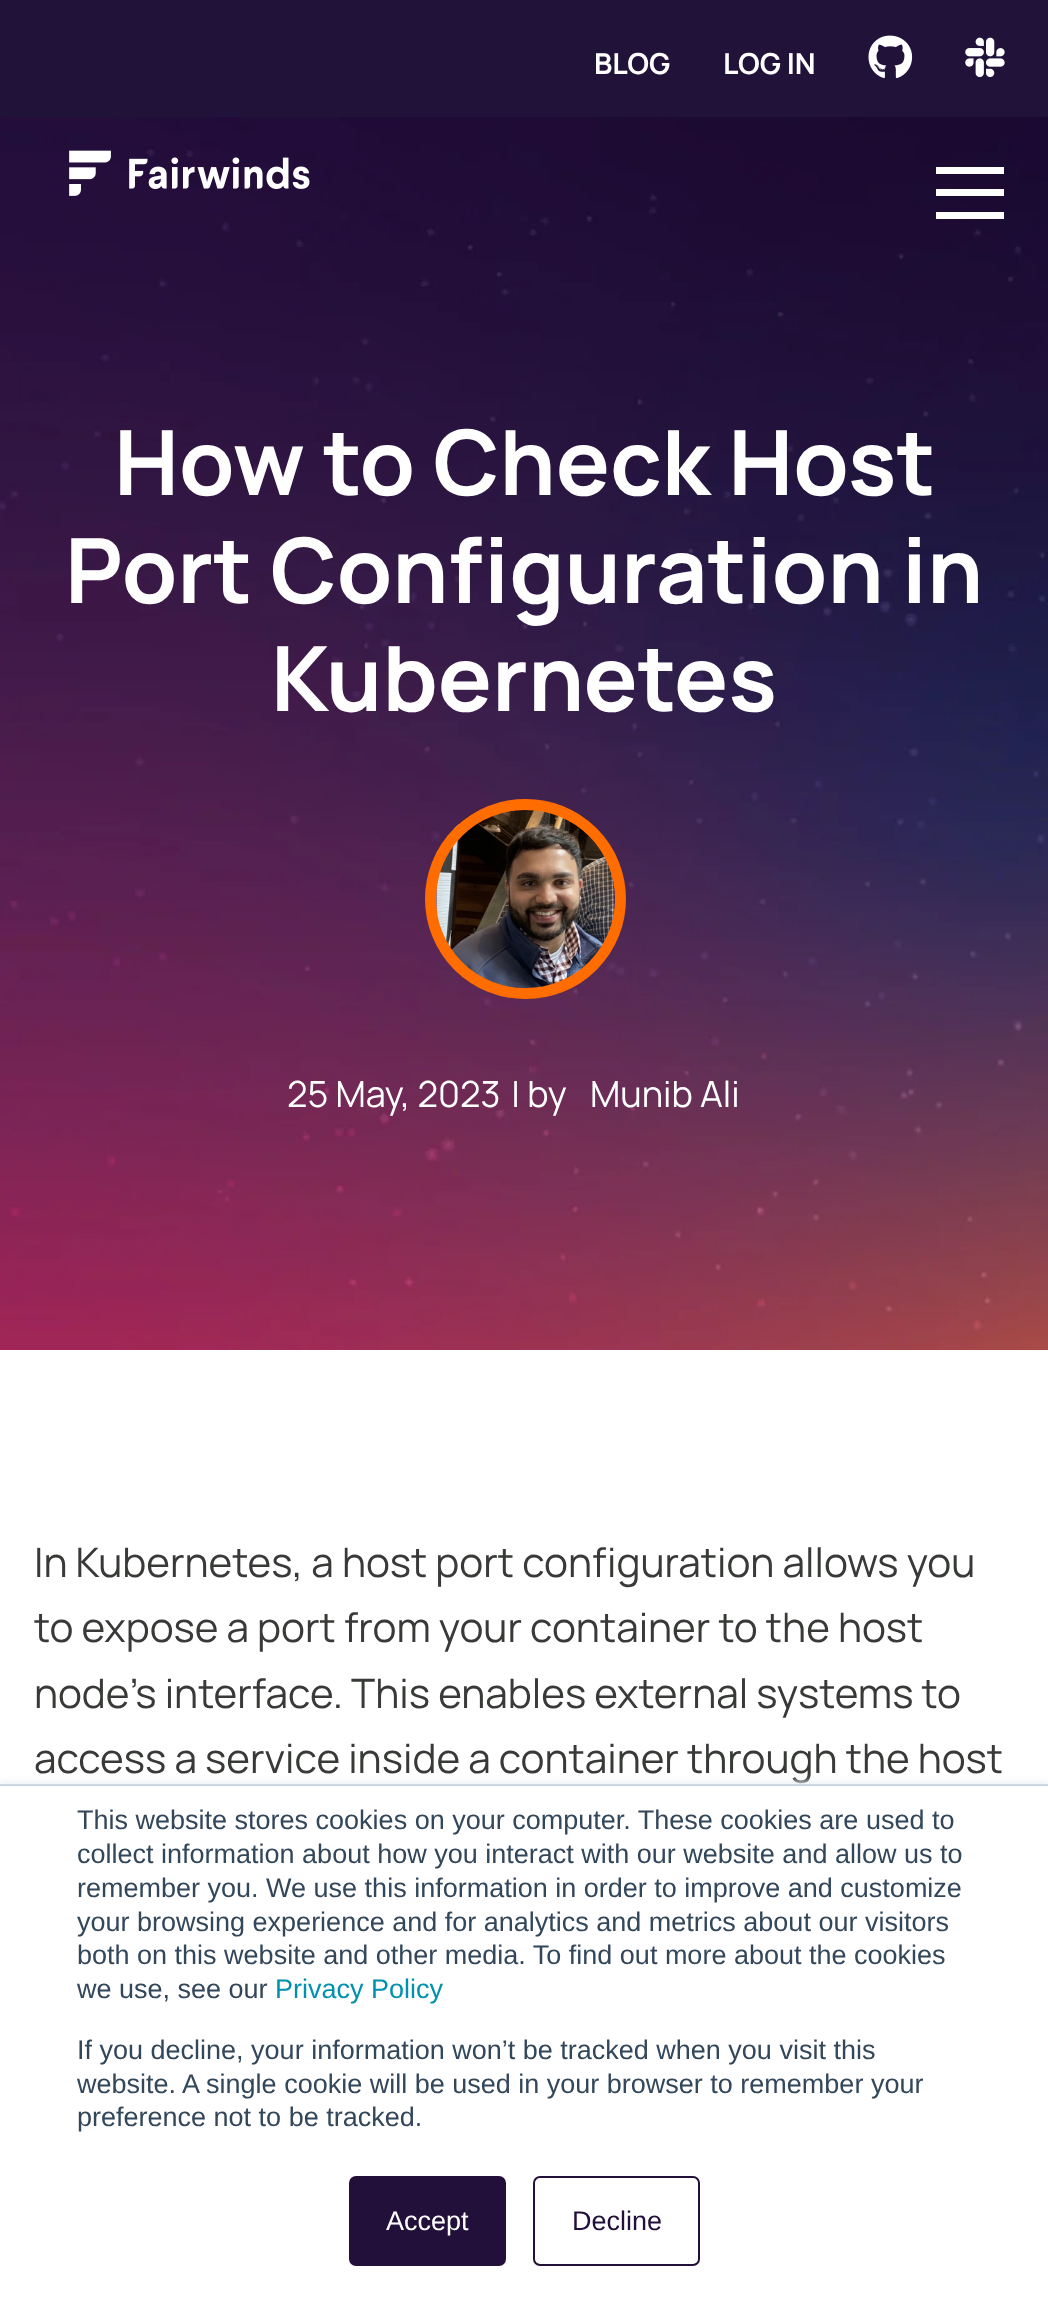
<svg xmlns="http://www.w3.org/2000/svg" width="1048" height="2310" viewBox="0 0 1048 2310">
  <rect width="100%" height="100%" fill="rgb(255,255,255)"/>
  <rect x="0" y="0" width="1048" height="117" fill="rgb(32,18,57)"/>
  <g font-family="Manrope" font-size="29" font-weight="bold" fill="rgb(255,255,255)">
    <text x="594" y="74">BLOG</text>
    <text x="723" y="74">LOG IN</text>
  </g>
  <image x="868" y="35" width="45" height="44" href="pic1.png"/>
  <image x="965" y="37" width="40" height="41" href="pic2.png"/>
  <image x="0" y="117" width="1048" height="1233" href="pic4.png"/>
  <image x="69" y="150" width="241" height="46" href="pic3.png"/>
  <rect x="936" y="189" width="68" height="7" fill="rgb(255,255,255)"/>
  <rect x="936" y="167" width="68" height="7" fill="rgb(255,255,255)"/>
  <rect x="936" y="212" width="68" height="7" fill="rgb(255,255,255)"/>
  <g font-family="Manrope" font-size="90" font-weight="bold" fill="rgb(255,255,255)">
    <text x="114" y="495">How to Check Host</text>
    <text x="65" y="603">Port Configuration in</text>
    <text x="271" y="711">Kubernetes</text>
  </g>
  <image x="436" y="810" width="179" height="178" href="pic5.png"/>
  <rect x="430.5" y="804.5" width="190" height="189" rx="94.5" fill="none" stroke="rgb(255,108,0)" stroke-width="11"/>
  <g font-family="Manrope" font-size="36" fill="rgb(255,255,255)">
    <text x="287" y="1107">25 May, 2023</text>
    <text x="511" y="1107">| by</text>
    <text x="590" y="1107">Munib Ali</text>
  </g>
  <g font-family="Manrope" font-size="40.5" fill="rgb(55,58,54)">
    <text>
      <tspan x="34" y="1577">In Kubernetes, a host port configuration allows you</tspan>
      <tspan x="34" y="1642">to expose a port from your container to the host</tspan>
      <tspan x="34" y="1708">node's interface. This enables external systems to</tspan>
      <tspan x="34" y="1773">access a service inside a container through the host</tspan>
    </text>
  </g>
  <rect x="0" y="1782" width="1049" height="527" fill="rgb(234,240,246)" filter="blur(3.5px)"/>
  <rect x="0" y="1786" width="1048" height="524" fill="rgb(255,255,255)"/>
  <rect x="0" y="1784" width="1048" height="2" fill="rgb(203,214,226)"/>
  <g font-family="Liberation Sans" font-size="27" fill="rgb(51,71,91)">
    <text>
      <tspan x="77" y="1829">This website stores cookies on your computer. These cookies are used to</tspan>
      <tspan x="77" y="1863">collect information about how you interact with our website and allow us to</tspan>
      <tspan x="77" y="1897">remember you. We use this information in order to improve and customize</tspan>
      <tspan x="77" y="1931">your browsing experience and for analytics and metrics about our visitors</tspan>
      <tspan x="77" y="1964">both on this website and other media. To find out more about the cookies</tspan>
      <tspan x="77" y="1998">we use, see our</tspan>
    </text>
  </g>
  <text x="275" y="1998" font-family="Liberation Sans" font-size="27" fill="rgb(0,145,174)">Privacy Policy</text>
  <g font-family="Liberation Sans" font-size="27" fill="rgb(51,71,91)">
    <text>
      <tspan x="77" y="2059">If you decline, your information won’t be tracked when you visit this</tspan>
      <tspan x="77" y="2093">website. A single cookie will be used in your browser to remember your</tspan>
      <tspan x="77" y="2126">preference not to be tracked.</tspan>
    </text>
  </g>
  <rect x="350" y="2177" width="155" height="88" rx="6" fill="rgb(35,16,58)" stroke="rgb(35,16,58)" stroke-width="2"/>
  <text x="386" y="2230" font-family="Liberation Sans" font-size="27" fill="rgb(255,255,255)">Accept</text>
  <rect x="534" y="2177" width="165" height="88" rx="6" fill="none" stroke="rgb(35,16,58)" stroke-width="2"/>
  <text x="572" y="2230" font-family="Liberation Sans" font-size="27" fill="rgb(35,16,58)">Decline</text>
</svg>
